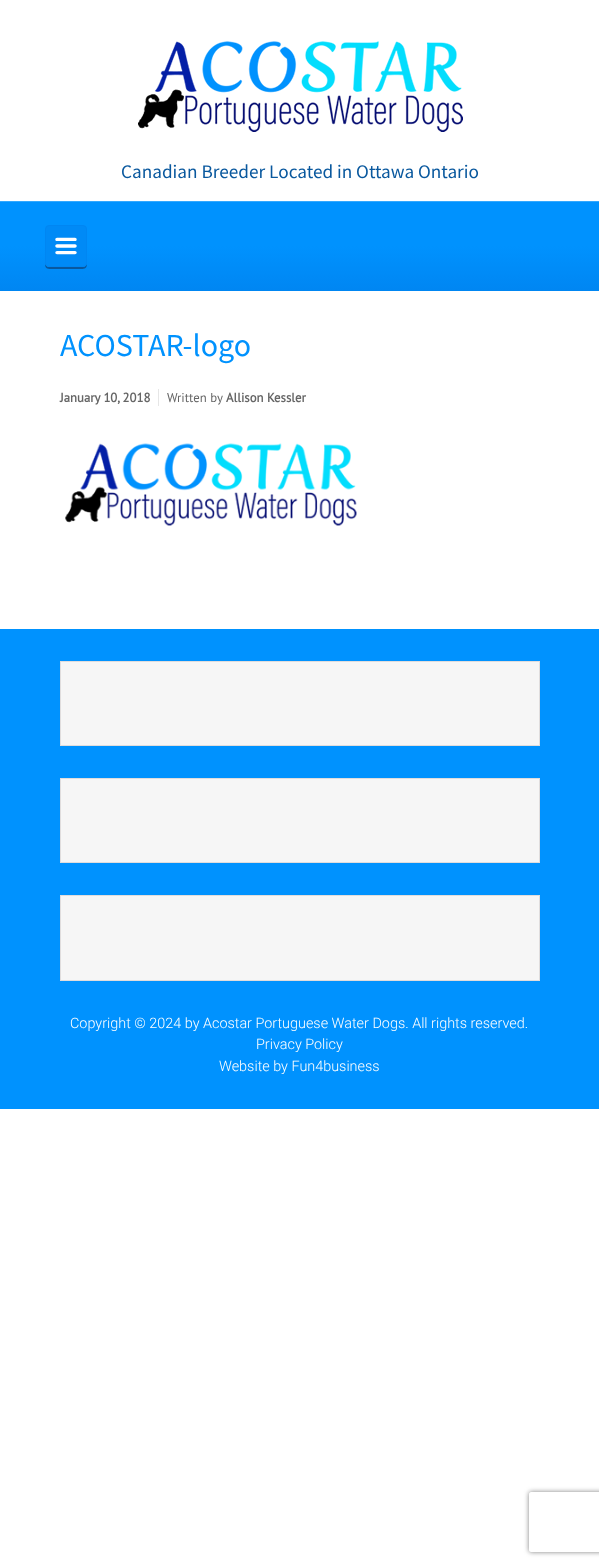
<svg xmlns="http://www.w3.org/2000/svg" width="599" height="1566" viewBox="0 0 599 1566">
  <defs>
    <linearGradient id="g1" gradientUnits="userSpaceOnUse" x1="300" y1="201" x2="300" y2="291"><stop offset="0.5" stop-color="rgb(0,146,254)"/><stop offset="1" stop-color="rgb(0,134,242)"/></linearGradient>
    <clipPath id="clip1"><path d="M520 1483H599V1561H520ZM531 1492H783C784 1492 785 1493 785 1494V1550C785 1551 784 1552 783 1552H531C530 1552 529 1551 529 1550V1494C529 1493 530 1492 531 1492Z" clip-rule="evenodd"/></clipPath>
  </defs>
  <rect width="100%" height="100%" fill="rgb(255,255,255)"/>
  <image x="138" y="41" width="325" height="91" href="pic1.png"/>
  <text x="121" y="178" font-family="Source Sans Pro" font-size="19.25" fill="rgb(9,88,158)">Canadian Breeder Located in Ottawa Ontario</text>
  <rect x="0" y="202" width="599" height="89" fill="url(#g1)"/>
  <rect x="0" y="201" width="599" height="1" fill="rgb(51,168,254)"/>
  <path d="M45 263C45 270 48 269 55 269H77C84 269 87 270 87 263C87 265 85 267 83 267H49C47 267 45 265 45 263Z" fill="rgb(9,88,158)"/>
  <rect x="45.5" y="225.5" width="41" height="41" rx="3.5" fill="rgb(0,138,246)" stroke="rgb(0,134,242)"/>
  <image x="55" y="237" width="22" height="18" href="pic2.png"/>
  <text x="60" y="356" font-family="Source Sans Pro" font-size="32" fill="rgb(0,146,254)">ACOSTAR-logo</text>
  <text x="60" y="402" font-family="PT Sans" font-size="12.75" font-weight="bold" fill="rgb(102,102,102)">January 10, 2018</text>
  <rect x="158" y="389" width="1" height="17" fill="rgb(230,230,230)"/>
  <text x="167" y="402" font-family="PT Sans" font-size="12.75" fill="rgb(102,102,102)">Written by</text>
  <text x="226" y="402" font-family="PT Sans" font-size="12.75" font-weight="bold" fill="rgb(102,102,102)">Allison Kessler</text>
  <image x="65" y="443" width="292" height="83" href="pic3.png"/>
  <rect x="0" y="629" width="599" height="480" fill="rgb(0,146,254)"/>
  <rect x="60.5" y="661.5" width="479" height="84" fill="rgb(246,246,246)" stroke="rgb(224,221,221)"/>
  <rect x="60.5" y="778.5" width="479" height="84" fill="rgb(246,246,246)" stroke="rgb(224,221,221)"/>
  <rect x="60.5" y="895.5" width="479" height="85" fill="rgb(246,246,246)" stroke="rgb(224,221,221)"/>
  <g font-family="Roboto" font-size="14.4" font-weight="300" fill="rgb(255,255,255)">
    <text x="70" y="1028">Copyright © 2024 by Acostar Portuguese Water Dogs. All rights reserved.</text>
    <text x="256" y="1049">Privacy Policy</text>
    <text x="219" y="1071">Website by Fun4business</text>
  </g>
  <g clip-path="url(#clip1)">
    <rect x="529" y="1492" width="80" height="60" rx="2" fill="rgb(128,128,128)" filter="blur(2.5px)"/>
  </g>
</svg>
